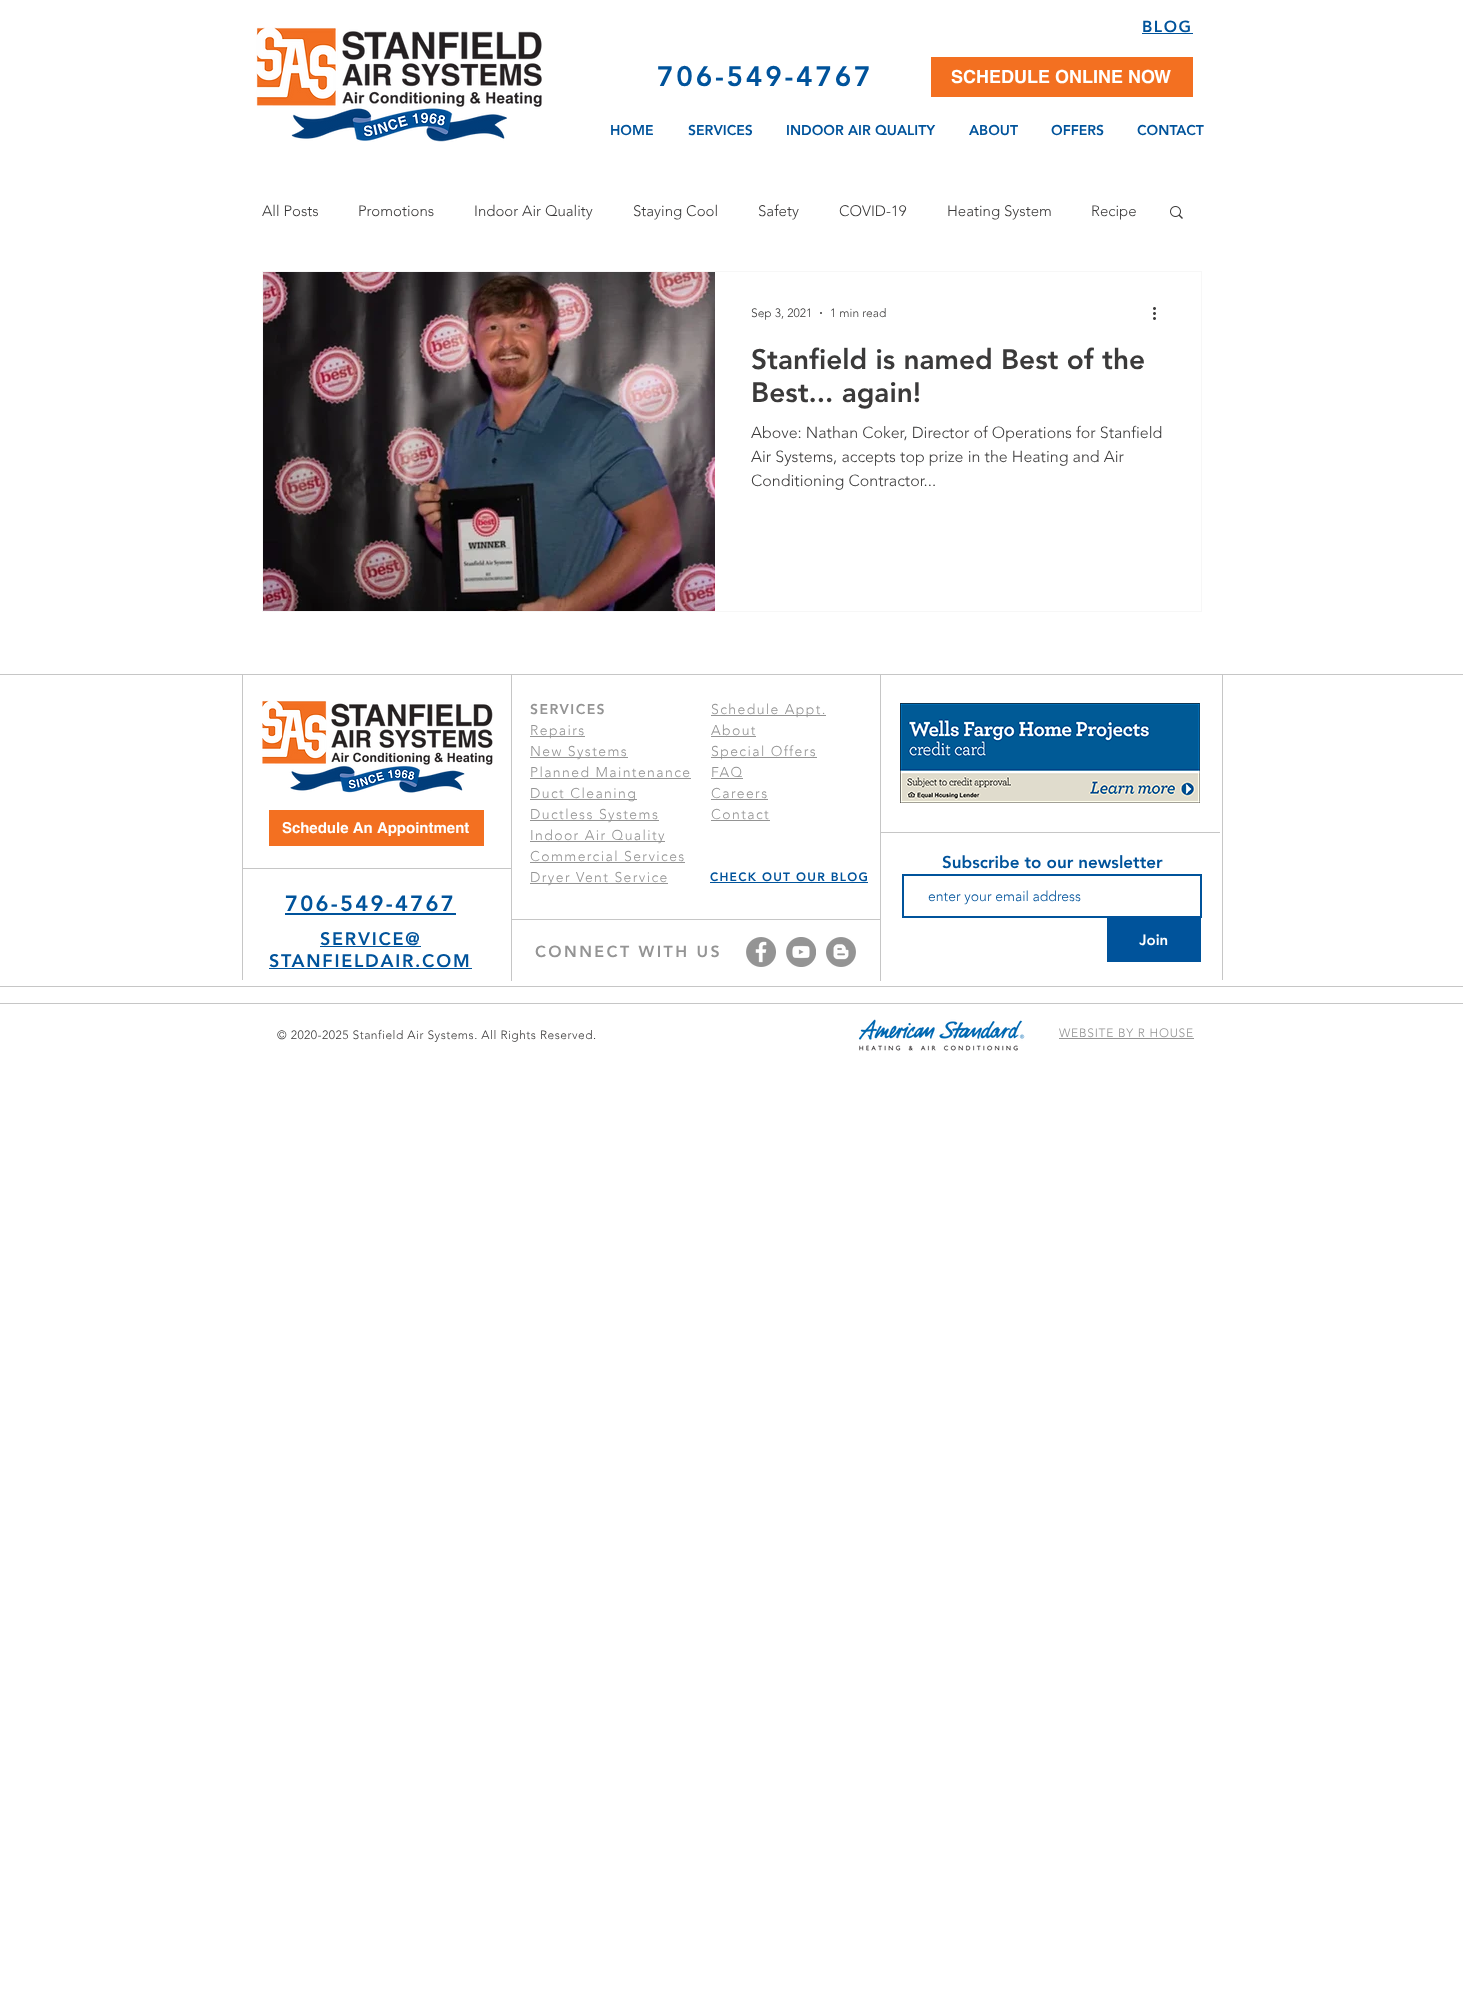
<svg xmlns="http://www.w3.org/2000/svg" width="1463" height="2007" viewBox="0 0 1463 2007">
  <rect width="100%" height="100%" fill="rgb(255,255,255)"/>
  <image x="256" y="27" width="286" height="115" href="pic1.png"/>
  <text x="657" y="86" font-family="'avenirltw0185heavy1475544'" font-size="28" font-weight="900" letter-spacing="2.75" fill="rgb(0,83,155)">706-549-4767</text>
  <text x="1142" y="32" font-family="'avenirltw0185heavy1475544'" font-size="16" font-weight="900" letter-spacing="1.5" fill="rgb(0,83,155)">BLOG</text>
  <rect x="1142" y="33" width="51" height="1" fill="rgb(0,83,155)"/>
  <rect x="931" y="57" width="262" height="40" fill="rgb(243,112,33)"/>
  <text x="951" y="83" font-family="helvetica" font-size="18" font-weight="bold" fill="rgb(255,255,255)">SCHEDULE ONLINE NOW</text>
  <g font-family="'avenirltw0185heavy1475544'" font-size="14" font-weight="900" fill="rgb(0,83,155)">
    <text x="610" y="135">HOME</text>
    <text x="688" y="135">SERVICES</text>
    <text x="786" y="135">INDOOR AIR QUALITY</text>
    <text x="969" y="135">ABOUT</text>
    <text x="1051" y="135">OFFERS</text>
    <text x="1137" y="135">CONTACT</text>
  </g>
  <g font-family="'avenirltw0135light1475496'" font-size="15" font-weight="300" fill="rgb(59,58,58)">
    <text x="262" y="216">All Posts</text>
    <text x="358" y="216">Promotions</text>
    <text x="474" y="216">Indoor Air Quality</text>
    <text x="633" y="216">Staying Cool</text>
    <text x="758" y="216">Safety</text>
    <text x="839" y="216">COVID-19</text>
    <text x="947" y="216">Heating System</text>
    <text x="1091" y="216">Recipe</text>
  </g>
  <image x="1170" y="206" width="13" height="13" href="pic2.png"/>
  <rect x="262.5" y="271.5" width="939" height="340" fill="none" stroke="rgb(247,247,247)"/>
  <image x="263" y="272" width="452" height="339" href="pic3.png"/>
  <text x="751" y="317" font-family="'avenirltw0135light1475496'" font-size="12" font-weight="300" fill="rgb(59,58,58)">Sep 3, 2021</text>
  <circle cx="821" cy="313" r="1" fill="rgb(59,58,58)"/>
  <text x="830" y="317" font-family="'avenirltw0135light1475496'" font-size="12" font-weight="300" fill="rgb(59,58,58)">1 min read</text>
  <image x="1153" y="307" width="3" height="13" href="pic4.png"/>
  <g font-family="'avenirltw0185heavy1475544'" font-size="28" font-weight="900" fill="rgb(59,58,58)">
    <text>
      <tspan x="751" y="369">Stanfield is named Best of the</tspan>
      <tspan x="751" y="402">Best... again!</tspan>
    </text>
  </g>
  <g font-family="'avenirltw0135light1475496'" font-size="16" font-weight="300" fill="rgb(59,58,58)">
    <text>
      <tspan x="751" y="438">Above: Nathan Coker, Director of Operations for Stanfield</tspan>
      <tspan x="751" y="462">Air Systems, accepts top prize in the Heating and Air</tspan>
      <tspan x="751" y="486">Conditioning Contractor...</tspan>
    </text>
  </g>
  <rect x="242" y="674" width="1" height="306" fill="rgb(198,198,198)"/>
  <rect x="0" y="674" width="1463" height="1" fill="rgb(198,198,198)"/>
  <image x="262" y="700" width="231" height="93" href="pic5.png"/>
  <rect x="511" y="675" width="1" height="306" fill="rgb(198,198,198)"/>
  <text x="530" y="714" font-family="'avenirltw0185heavy1475544'" font-size="14" font-weight="900" letter-spacing="1.4" fill="rgb(148,148,148)">SERVICES</text>
  <rect x="530" y="736" width="55" height="1" fill="rgb(148,148,148)"/>
  <text x="530" y="735" font-family="'avenirltw0135light1475496'" font-size="14" font-weight="300" letter-spacing="1.4" fill="rgb(148,148,148)">Repairs</text>
  <rect x="530" y="757" width="98" height="1" fill="rgb(148,148,148)"/>
  <g font-family="'avenirltw0135light1475496'" font-size="14" font-weight="300" letter-spacing="1.4" fill="rgb(148,148,148)">
    <text>
      <tspan x="530" y="756">New Systems</tspan>
      <tspan x="530" y="777">Planned Maintenance</tspan>
    </text>
  </g>
  <rect x="530" y="778" width="161" height="1" fill="rgb(148,148,148)"/>
  <rect x="530" y="799" width="107" height="1" fill="rgb(148,148,148)"/>
  <text x="530" y="798" font-family="'avenirltw0135light1475496'" font-size="14" font-weight="300" letter-spacing="1.4" fill="rgb(148,148,148)">Duct Cleaning</text>
  <rect x="530" y="820" width="129" height="1" fill="rgb(148,148,148)"/>
  <text x="530" y="819" font-family="'avenirltw0135light1475496'" font-size="14" font-weight="300" letter-spacing="1.4" fill="rgb(148,148,148)">Ductless Systems</text>
  <rect x="530" y="841" width="135" height="1" fill="rgb(148,148,148)"/>
  <g font-family="'avenirltw0135light1475496'" font-size="14" font-weight="300" letter-spacing="1.4" fill="rgb(148,148,148)">
    <text>
      <tspan x="530" y="840">Indoor Air Quality</tspan>
      <tspan x="530" y="861">Commercial Services</tspan>
    </text>
  </g>
  <rect x="530" y="862" width="155" height="1" fill="rgb(148,148,148)"/>
  <rect x="530" y="883" width="138" height="1" fill="rgb(148,148,148)"/>
  <text x="530" y="882" font-family="'avenirltw0135light1475496'" font-size="14" font-weight="300" letter-spacing="1.4" fill="rgb(148,148,148)">Dryer Vent Service</text>
  <rect x="711" y="715" width="115" height="1" fill="rgb(148,148,148)"/>
  <g font-family="'avenirltw0135light1475496'" font-size="14" font-weight="300" letter-spacing="1.4" fill="rgb(148,148,148)">
    <text>
      <tspan x="711" y="714">Schedule Appt.</tspan>
      <tspan x="711" y="735">About</tspan>
    </text>
  </g>
  <rect x="711" y="736" width="45" height="1" fill="rgb(148,148,148)"/>
  <rect x="711" y="757" width="106" height="1" fill="rgb(148,148,148)"/>
  <g font-family="'avenirltw0135light1475496'" font-size="14" font-weight="300" letter-spacing="1.4" fill="rgb(148,148,148)">
    <text>
      <tspan x="711" y="756">Special Offers</tspan>
      <tspan x="711" y="777">FAQ</tspan>
    </text>
  </g>
  <rect x="711" y="778" width="32" height="1" fill="rgb(148,148,148)"/>
  <text x="711" y="798" font-family="'avenirltw0135light1475496'" font-size="14" font-weight="300" letter-spacing="1.4" fill="rgb(148,148,148)">Careers</text>
  <rect x="711" y="799" width="57" height="1" fill="rgb(148,148,148)"/>
  <text x="711" y="819" font-family="'avenirltw0135light1475496'" font-size="14" font-weight="300" letter-spacing="1.4" fill="rgb(148,148,148)">Contact</text>
  <rect x="711" y="820" width="59" height="1" fill="rgb(148,148,148)"/>
  <rect x="880" y="675" width="1" height="306" fill="rgb(198,198,198)"/>
  <image x="900" y="703" width="300" height="100" href="pic6.png"/>
  <rect x="1222" y="674" width="1" height="306" fill="rgb(198,198,198)"/>
  <rect x="269" y="810" width="215" height="36" fill="rgb(243,112,33)"/>
  <text x="282" y="833" font-family="helvetica" font-size="15" font-weight="bold" fill="rgb(255,255,255)">Schedule An Appointment</text>
  <rect x="881" y="832" width="339" height="1" fill="rgb(198,198,198)"/>
  <rect x="242" y="868" width="270" height="1" fill="rgb(198,198,198)"/>
  <text x="942" y="868" font-family="'avenirltw0185heavy1475544'" font-size="17" font-weight="900" fill="rgb(0,83,155)">Subscribe to our newsletter</text>
  <rect x="903" y="875" width="298" height="42" fill="none" stroke="rgb(0,83,155)" stroke-width="2"/>
  <text x="928" y="901" font-family="'avenirltw0135light1475496'" font-size="14" font-weight="300" fill="rgb(0,83,155)">enter your email address</text>
  <rect x="1107" y="918" width="94" height="44" fill="rgb(0,83,155)"/>
  <text x="1139" y="945" font-family="'avenirltw0185heavy1475544'" font-size="15" font-weight="900" fill="rgb(255,255,255)">Join</text>
  <text x="710" y="881" font-family="'avenirltw0185heavy1475544'" font-size="12" font-weight="900" letter-spacing="1.25" fill="rgb(0,83,155)">CHECK OUT OUR BLOG</text>
  <rect x="710" y="882" width="158" height="1" fill="rgb(0,83,155)"/>
  <text x="285" y="911" font-family="'avenirltw0185heavy1475544'" font-size="22" font-weight="900" letter-spacing="2.25" fill="rgb(0,83,155)">706-549-4767</text>
  <rect x="285" y="913" width="171" height="2" fill="rgb(0,83,155)"/>
  <rect x="512" y="919" width="369" height="1" fill="rgb(198,198,198)"/>
  <text x="320" y="945" font-family="'avenirltw0185heavy1475544'" font-size="18" font-weight="900" letter-spacing="1.75" fill="rgb(0,83,155)">SERVICE@</text>
  <rect x="320" y="946" width="101" height="1" fill="rgb(0,83,155)"/>
  <text x="269" y="967" font-family="'avenirltw0185heavy1475544'" font-size="18" font-weight="900" letter-spacing="1.75" fill="rgb(0,83,155)">STANFIELDAIR.COM</text>
  <rect x="269" y="968" width="203" height="1" fill="rgb(0,83,155)"/>
  <text x="535" y="957" font-family="'avenirltw0185heavy1475544'" font-size="16" font-weight="900" letter-spacing="2.4" fill="rgb(148,148,148)">CONNECT WITH US</text>
  <image x="746" y="937" width="30" height="30" href="pic7.png"/>
  <image x="786" y="937" width="30" height="30" href="pic8.png"/>
  <image x="826" y="937" width="30" height="30" href="pic9.png"/>
  <rect x="0" y="986" width="1463" height="1" fill="rgb(198,198,198)"/>
  <rect x="0" y="1003" width="1463" height="1" fill="rgb(198,198,198)"/>
  <text x="277" y="1039" font-family="'avenirltw0135light1475496'" font-size="12" font-weight="300" letter-spacing="0.48" fill="rgb(59,58,58)">© 2020-2025 Stanfield Air Systems. All Rights Reserved.</text>
  <image x="858" y="1019" width="167" height="32" href="pic10.png"/>
  <text x="1059" y="1037" font-family="'avenirltw0135light1475496'" font-size="12" font-weight="300" letter-spacing="0.75" fill="rgb(148,148,148)">WEBSITE BY R HOUSE</text>
  <rect x="1059" y="1038" width="135" height="1" fill="rgb(148,148,148)"/>
</svg>
